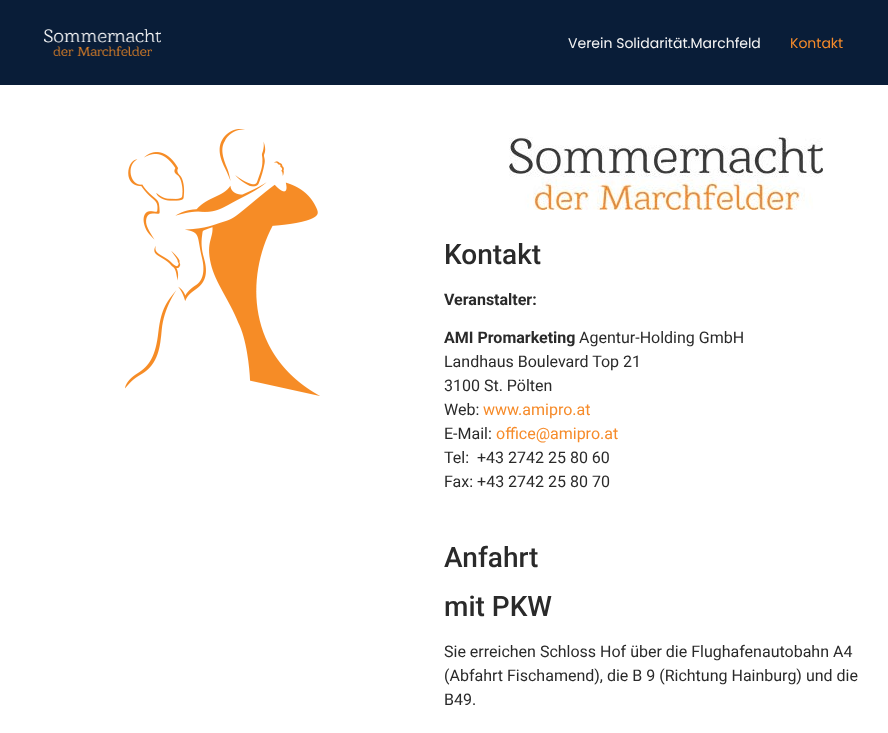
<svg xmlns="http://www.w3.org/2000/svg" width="888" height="733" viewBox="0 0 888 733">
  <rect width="100%" height="100%" fill="rgb(255,255,255)"/>
  <rect x="0" y="0" width="888" height="85" fill="rgb(9,29,56)"/>
  <image x="44" y="29" width="117" height="27" href="pic1.png"/>
  <text x="568" y="48" font-family="Poppins" font-size="14" fill="rgb(244,244,244)">Verein Solidarität.Marchfeld</text>
  <text x="790" y="48" font-family="Poppins" font-size="14" fill="rgb(246,139,42)">Kontakt</text>
  <image x="125" y="129" width="195" height="267" href="pic2.png"/>
  <image x="509" y="137" width="314" height="73" href="pic3.png"/>
  <text x="444" y="264" font-family="Roboto" font-size="28" font-weight="500" fill="rgb(42,42,42)">Kontakt</text>
  <g font-family="Roboto" font-size="16" font-weight="bold" fill="rgb(42,42,42)">
    <text x="444" y="305">Veranstalter:</text>
    <text x="444" y="343">AMI Promarketing</text>
  </g>
  <g font-family="Roboto" font-size="16" fill="rgb(42,42,42)">
    <text x="579" y="343">Agentur-Holding GmbH</text>
    <text>
      <tspan x="444" y="367">Landhaus Boulevard Top 21</tspan>
      <tspan x="444" y="391">3100 St. Pölten</tspan>
      <tspan x="444" y="415">Web:</tspan>
    </text>
  </g>
  <text x="483" y="415" font-family="Roboto" font-size="16" fill="rgb(246,139,42)">www.amipro.at</text>
  <text x="444" y="439" font-family="Roboto" font-size="16" fill="rgb(42,42,42)">E-Mail:</text>
  <text x="496" y="439" font-family="Roboto" font-size="16" fill="rgb(246,139,42)">office@amipro.at</text>
  <g font-family="Roboto" font-size="16" fill="rgb(42,42,42)">
    <text xml:space="preserve"><tspan x="444" y="463">Tel:  +43 2742 25 80 60</tspan><tspan x="444" y="487">Fax: +43 2742 25 80 70</tspan></text>
  </g>
  <g font-family="Roboto" font-size="28" font-weight="500" fill="rgb(42,42,42)">
    <text>
      <tspan x="444" y="567">Anfahrt</tspan>
      <tspan x="444" y="616">mit PKW</tspan>
    </text>
  </g>
  <g font-family="Roboto" font-size="16" fill="rgb(42,42,42)">
    <text>
      <tspan x="444" y="657">Sie erreichen Schloss Hof über die Flughafenautobahn A4</tspan>
      <tspan x="444" y="681">(Abfahrt Fischamend), die B 9 (Richtung Hainburg) und die</tspan>
      <tspan x="444" y="705">B49.</tspan>
    </text>
  </g>
</svg>
